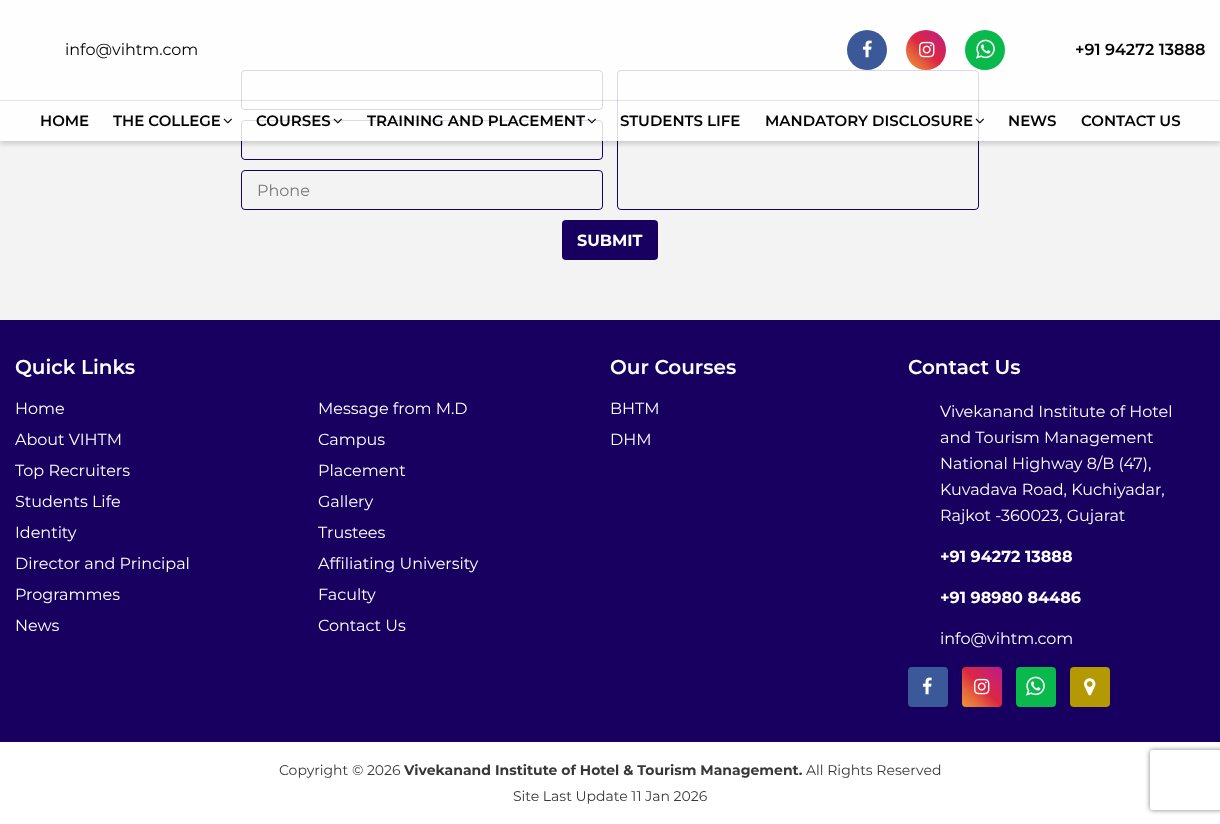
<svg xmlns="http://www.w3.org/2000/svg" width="1220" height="824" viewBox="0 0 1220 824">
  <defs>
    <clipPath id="clip1"><rect x="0" y="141" width="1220" height="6"/></clipPath>
    <linearGradient id="g1" gradientUnits="userSpaceOnUse" x1="906" y1="70" x2="946" y2="30"><stop offset="0" stop-color="rgb(240,148,51)"/><stop offset="0.25" stop-color="rgb(230,104,60)"/><stop offset="0.5" stop-color="rgb(220,39,67)"/><stop offset="0.75" stop-color="rgb(204,35,102)"/><stop offset="1" stop-color="rgb(188,24,136)"/></linearGradient>
    <linearGradient id="g2" gradientUnits="userSpaceOnUse" x1="962" y1="707" x2="1002" y2="667"><stop offset="0" stop-color="rgb(240,148,51)"/><stop offset="0.25" stop-color="rgb(230,104,60)"/><stop offset="0.5" stop-color="rgb(220,39,67)"/><stop offset="0.75" stop-color="rgb(204,35,102)"/><stop offset="1" stop-color="rgb(188,24,136)"/></linearGradient>
    <clipPath id="clip2"><path d="M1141 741H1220V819H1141ZM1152 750H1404C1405 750 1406 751 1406 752V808C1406 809 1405 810 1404 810H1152C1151 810 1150 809 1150 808V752C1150 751 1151 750 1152 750Z" clip-rule="evenodd"/></clipPath>
  </defs>
  <rect width="100%" height="100%" fill="rgb(255,255,255)"/>
  <rect x="0" y="0" width="1220" height="320" fill="rgb(243,243,243)"/>
  <rect x="241.5" y="70.5" width="361" height="39" rx="3.5" fill="none" stroke="rgb(24,0,96)"/>
  <rect x="241.5" y="120.5" width="361" height="39" rx="3.5" fill="none" stroke="rgb(24,0,96)"/>
  <rect x="617.5" y="70.5" width="361" height="139" rx="3.5" fill="none" stroke="rgb(24,0,96)"/>
  <g clip-path="url(#clip1)">
    <rect x="0" y="2" width="1220" height="141" fill="rgba(0,0,0,0.2)" filter="blur(3px)"/>
  </g>
  <rect x="0" y="0" width="1220" height="141" fill="rgba(255,255,255,0.85)"/>
  <text x="65" y="55" font-family="Montserrat" font-size="16" fill="rgb(0,0,0)">info@vihtm.com</text>
  <circle cx="867" cy="50" r="20" fill="rgb(59,89,153)"/>
  <image x="862" y="40" width="10" height="18" href="pic1.png"/>
  <circle cx="926" cy="50" r="20" fill="url(#g1)"/>
  <image x="919" y="41" width="16" height="17" href="pic2.png"/>
  <circle cx="985" cy="50" r="20" fill="rgb(10,185,75)"/>
  <image x="976" y="39" width="19" height="20" href="pic3.png"/>
  <text x="1075" y="55" font-family="Montserrat" font-size="16" font-weight="600" fill="rgb(0,0,0)">+91 94272 13888</text>
  <rect x="0" y="100" width="1220" height="1" fill="rgba(0,0,0,0.1)"/>
  <g font-family="Montserrat" font-size="15" font-weight="600" fill="rgb(0,0,0)">
    <text x="40" y="126">HOME</text>
    <text x="113" y="126">THE COLLEGE</text>
  </g>
  <image x="223" y="118" width="9" height="6" href="pic4.png"/>
  <text x="256" y="126" font-family="Montserrat" font-size="15" font-weight="600" fill="rgb(0,0,0)">COURSES</text>
  <image x="333" y="118" width="9" height="6" href="pic5.png"/>
  <text x="367" y="126" font-family="Montserrat" font-size="15" font-weight="600" fill="rgb(0,0,0)">TRAINING AND PLACEMENT</text>
  <image x="587" y="118" width="9" height="6" href="pic5.png"/>
  <g font-family="Montserrat" font-size="15" font-weight="600" fill="rgb(0,0,0)">
    <text x="620" y="126">STUDENTS LIFE</text>
    <text x="765" y="126">MANDATORY DISCLOSURE</text>
  </g>
  <image x="975" y="118" width="9" height="6" href="pic6.png"/>
  <g font-family="Montserrat" font-size="15" font-weight="600" fill="rgb(0,0,0)">
    <text x="1008" y="126">NEWS</text>
    <text x="1081" y="126">CONTACT US</text>
  </g>
  <rect x="241.5" y="170.5" width="361" height="39" rx="3.5" fill="none" stroke="rgb(24,0,96)"/>
  <text x="257" y="196" font-family="Montserrat" font-size="16" fill="rgb(122,122,122)">Phone</text>
  <rect x="562" y="220" width="96" height="40" rx="4" fill="rgb(24,0,96)"/>
  <text x="577" y="246" font-family="Montserrat" font-size="16" font-weight="bold" fill="rgb(255,255,255)">SUBMIT</text>
  <rect x="0" y="320" width="1220" height="422" fill="rgb(24,0,96)"/>
  <text x="15" y="374" font-family="Montserrat" font-size="20" font-weight="600" fill="rgb(255,255,255)">Quick Links</text>
  <g font-family="Montserrat" font-size="16" fill="rgb(255,255,255)">
    <text x="15" y="414">Home</text>
    <text x="318" y="414">Message from M.D</text>
    <text x="15" y="445">About VIHTM</text>
    <text x="318" y="445">Campus</text>
    <text x="15" y="476">Top Recruiters</text>
    <text x="318" y="476">Placement</text>
    <text x="15" y="507">Students Life</text>
    <text x="318" y="507">Gallery</text>
    <text x="15" y="538">Identity</text>
    <text x="318" y="538">Trustees</text>
    <text x="15" y="569">Director and Principal</text>
    <text x="318" y="569">Affiliating University</text>
    <text x="15" y="600">Programmes</text>
    <text x="318" y="600">Faculty</text>
    <text x="15" y="631">News</text>
    <text x="318" y="631">Contact Us</text>
  </g>
  <text x="610" y="374" font-family="Montserrat" font-size="20" font-weight="600" fill="rgb(255,255,255)">Our Courses</text>
  <g font-family="Montserrat" font-size="16" fill="rgb(255,255,255)">
    <text>
      <tspan x="610" y="414">BHTM</tspan>
      <tspan x="610" y="445">DHM</tspan>
    </text>
  </g>
  <text x="908" y="374" font-family="Montserrat" font-size="20" font-weight="600" fill="rgb(255,255,255)">Contact Us</text>
  <g font-family="Montserrat" font-size="16" fill="rgb(255,255,255)">
    <text>
      <tspan x="940" y="417">Vivekanand Institute of Hotel</tspan>
      <tspan x="940" y="443">and Tourism Management</tspan>
      <tspan x="940" y="469">National Highway 8/B (47),</tspan>
      <tspan x="940" y="495">Kuvadava Road, Kuchiyadar,</tspan>
      <tspan x="940" y="521">Rajkot -360023, Gujarat</tspan>
    </text>
  </g>
  <g font-family="Montserrat" font-size="16" font-weight="bold" fill="rgb(255,255,255)">
    <text x="940" y="562">+91 94272 13888</text>
    <text x="940" y="603">+91 98980 84486</text>
  </g>
  <text x="940" y="644" font-family="Montserrat" font-size="16" fill="rgb(255,255,255)">info@vihtm.com</text>
  <rect x="908" y="667" width="40" height="40" rx="4" fill="rgb(59,89,153)"/>
  <image x="922" y="677" width="10" height="18" href="pic1.png"/>
  <rect x="962" y="667" width="40" height="40" rx="4" fill="url(#g2)"/>
  <image x="974" y="678" width="16" height="17" href="pic7.png"/>
  <rect x="1016" y="667" width="40" height="40" rx="4" fill="rgb(10,185,75)"/>
  <image x="1026" y="676" width="19" height="20" href="pic3.png"/>
  <rect x="1070" y="667" width="40" height="40" rx="4" fill="rgb(180,153,2)"/>
  <image x="1084" y="678" width="12" height="18" href="pic8.png"/>
  <text x="279" y="775" font-family="Montserrat" font-size="14" fill="rgb(56,56,56)">Copyright © 2026</text>
  <text x="404" y="775" font-family="Montserrat" font-size="14" font-weight="bold" fill="rgb(56,56,56)">Vivekanand Institute of Hotel &amp; Tourism Management.</text>
  <g font-family="Montserrat" font-size="14" fill="rgb(56,56,56)">
    <text x="806" y="775">All Rights Reserved</text>
    <text x="513" y="801">Site Last Update 11 Jan 2026</text>
  </g>
  <g clip-path="url(#clip2)">
    <rect x="1150" y="750" width="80" height="60" rx="2" fill="rgb(128,128,128)" filter="blur(2.5px)"/>
  </g>
</svg>
